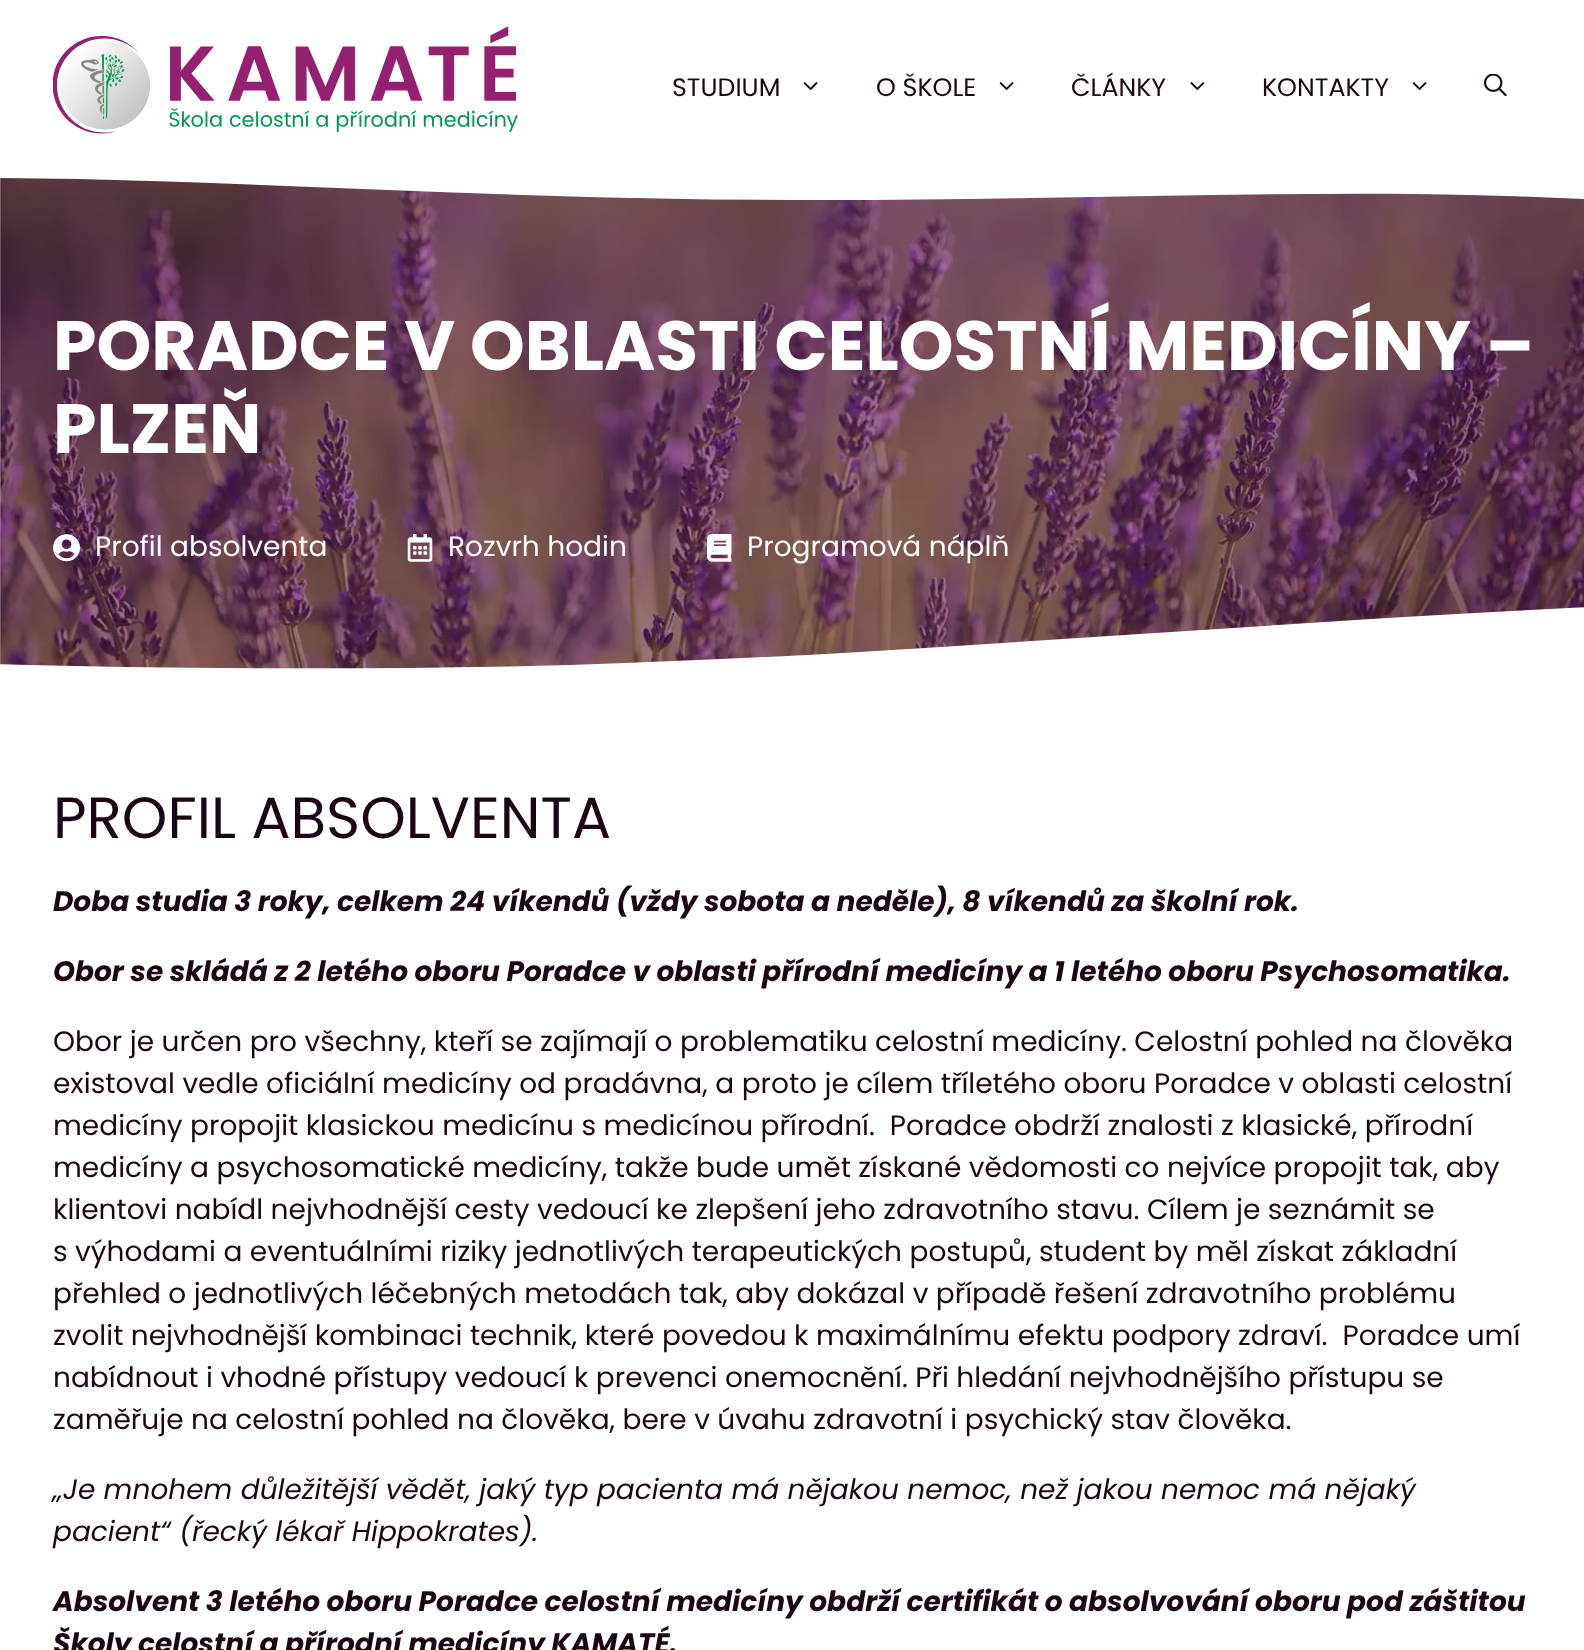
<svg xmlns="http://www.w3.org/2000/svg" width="1584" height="1650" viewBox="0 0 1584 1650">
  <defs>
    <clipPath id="clip1"><rect x="0" y="173" width="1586" height="55"/></clipPath>
    <clipPath id="clip2"><rect x="0" y="590" width="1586" height="86"/></clipPath>
  </defs>
  <rect width="100%" height="100%" fill="rgb(255,255,255)"/>
  <image x="53" y="26" width="465" height="108" href="pic1.png"/>
  <text x="672" y="96" font-family="Poppins" font-size="25.25" fill="rgb(26,6,20)">STUDIUM</text>
  <image x="803" y="82" width="15" height="9" href="pic2.png"/>
  <text x="876" y="96" font-family="Poppins" font-size="25.25" fill="rgb(26,6,20)">O ŠKOLE</text>
  <image x="999" y="82" width="15" height="9" href="pic2.png"/>
  <text x="1071" y="96" font-family="Poppins" font-size="25.25" fill="rgb(26,6,20)">ČLÁNKY</text>
  <image x="1190" y="82" width="15" height="9" href="pic3.png"/>
  <text x="1262" y="96" font-family="Poppins" font-size="25.25" fill="rgb(26,6,20)">KONTAKTY</text>
  <image x="1412" y="82" width="15" height="9" href="pic2.png"/>
  <image x="1484" y="74" width="23" height="22" href="pic4.png"/>
  <rect x="0" y="177" width="1584" height="492" fill="rgb(71,16,55)"/>
  <image x="0" y="177" width="1584" height="492" href="pic5.png"/>
  <g clip-path="url(#clip1)">
    <path d="M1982 172H-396V180L-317 179C-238 178-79 176 79 179C238 183 396 191 555 196C713 201 872 201 1031 198C1189 196 1348 191 1506 196C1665 201 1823 214 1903 221L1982 228Z" fill="rgb(255,255,255)"/>
  </g>
  <g clip-path="url(#clip2)">
    <path d="M-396 650C-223 657-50 664 124 667C273 669 421 669 570 665C694 661 818 655 941 647L1387 618C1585 606 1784 598 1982 590V677H-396Z" fill="rgb(255,255,255)"/>
  </g>
  <g font-family="Poppins" font-size="69.7" font-weight="bold" fill="rgb(255,255,255)">
    <text>
      <tspan x="53" y="370">PORADCE V OBLASTI CELOSTNÍ MEDICÍNY –</tspan>
      <tspan x="53" y="453">PLZEŇ</tspan>
    </text>
  </g>
  <image x="53" y="534" width="28" height="28" href="pic6.png"/>
  <text x="95" y="556" font-family="Poppins" font-size="28" fill="rgb(255,255,255)">Profil absolventa</text>
  <image x="407" y="534" width="26" height="28" href="pic7.png"/>
  <text x="448" y="556" font-family="Poppins" font-size="28" fill="rgb(255,255,255)">Rozvrh hodin</text>
  <image x="707" y="534" width="25" height="28" href="pic8.png"/>
  <text x="747" y="556" font-family="Poppins" font-size="28" fill="rgb(255,255,255)">Programová náplň</text>
  <text x="53" y="838" font-family="Poppins" font-size="58" fill="rgb(26,6,20)">PROFIL ABSOLVENTA</text>
  <g font-family="Poppins" font-size="28" font-weight="bold" font-style="italic" fill="rgb(26,6,20)">
    <text x="53" y="911">Doba studia 3 roky, celkem 24 víkendů (vždy sobota a neděle), 8 víkendů za školní rok.</text>
    <text x="53" y="981">Obor se skládá z 2 letého oboru Poradce v oblasti přírodní medicíny a 1 letého oboru Psychosomatika.</text>
  </g>
  <g font-family="Poppins" font-size="28" fill="rgb(26,6,20)">
    <text xml:space="preserve"><tspan x="53" y="1051">Obor je určen pro všechny, kteří se zajímají o problematiku celostní medicíny. Celostní pohled na člověka</tspan><tspan x="53" y="1093">existoval vedle oficiální medicíny od pradávna, a proto je cílem tříletého oboru Poradce v oblasti celostní</tspan><tspan x="53" y="1135">medicíny propojit klasickou medicínu s medicínou přírodní.  Poradce obdrží znalosti z klasické, přírodní</tspan><tspan x="53" y="1177">medicíny a psychosomatické medicíny, takže bude umět získané vědomosti co nejvíce propojit tak, aby</tspan><tspan x="53" y="1219">klientovi nabídl nejvhodnější cesty vedoucí ke zlepšení jeho zdravotního stavu. Cílem je seznámit se</tspan><tspan x="53" y="1261">s výhodami a eventuálními riziky jednotlivých terapeutických postupů, student by měl získat základní</tspan><tspan x="53" y="1303">přehled o jednotlivých léčebných metodách tak, aby dokázal v případě řešení zdravotního problému</tspan><tspan x="53" y="1345">zvolit nejvhodnější kombinaci technik, které povedou k maximálnímu efektu podpory zdraví.  Poradce umí</tspan><tspan x="53" y="1387">nabídnout i vhodné přístupy vedoucí k prevenci onemocnění. Při hledání nejvhodnějšího přístupu se</tspan><tspan x="53" y="1429">zaměřuje na celostní pohled na člověka, bere v úvahu zdravotní i psychický stav člověka.</tspan></text>
  </g>
  <g font-family="Poppins" font-size="28" font-style="italic" fill="rgb(26,6,20)">
    <text>
      <tspan x="53" y="1499">„Je mnohem důležitější vědět, jaký typ pacienta má nějakou nemoc, než jakou nemoc má nějaký</tspan>
      <tspan x="53" y="1541">pacient“ (řecký lékař Hippokrates).</tspan>
    </text>
  </g>
  <g font-family="Poppins" font-size="28" font-weight="bold" font-style="italic" fill="rgb(26,6,20)">
    <text>
      <tspan x="53" y="1611">Absolvent 3 letého oboru Poradce celostní medicíny obdrží certifikát o absolvování oboru pod záštitou</tspan>
      <tspan x="53" y="1653">Školy celostní a přírodní medicíny KAMATÉ.</tspan>
    </text>
  </g>
</svg>
